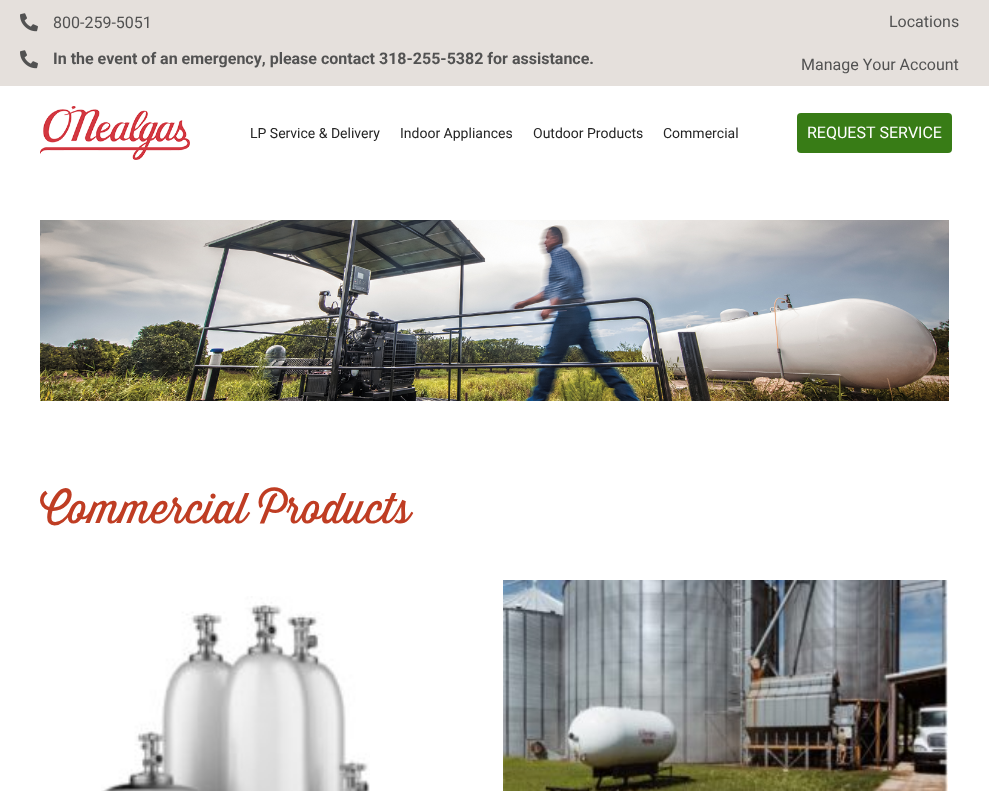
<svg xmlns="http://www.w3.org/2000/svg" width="989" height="791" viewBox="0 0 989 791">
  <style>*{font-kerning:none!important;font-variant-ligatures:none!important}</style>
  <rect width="100%" height="100%" fill="rgb(255,255,255)"/>
  <rect x="0" y="0" width="989" height="86" fill="rgb(229,224,220)"/>
  <image x="20" y="13" width="18" height="19" href="pic1.png"/>
  <text x="53" y="28" font-family="Roboto" font-size="16" fill="rgb(82,82,82)">800-259-5051</text>
  <image x="20" y="50" width="18" height="19" href="pic1.png"/>
  <text x="53" y="64" font-family="Roboto" font-size="16" font-weight="bold" fill="rgb(82,82,82)">In the event of an emergency, please contact 318-255-5382 for assistance.</text>
  <g font-family="Roboto" font-size="16" fill="rgb(82,82,82)">
    <text x="889" y="27">Locations</text>
    <text x="801" y="70">Manage Your Account</text>
  </g>
  <image x="40" y="106" width="150" height="54" href="pic2.png"/>
  <g font-family="Roboto" font-size="14" fill="rgb(37,37,37)">
    <text x="250" y="138">LP Service &amp; Delivery</text>
    <text x="400" y="138">Indoor Appliances</text>
    <text x="533" y="138">Outdoor Products</text>
    <text x="663" y="138">Commercial</text>
  </g>
  <rect x="797" y="113" width="155" height="40" rx="4" fill="rgb(56,124,22)"/>
  <text x="807" y="138" font-family="Roboto" font-size="16" fill="rgb(255,255,255)">REQUEST SERVICE</text>
  <image x="40" y="220" width="909" height="181" href="pic3.png"/>
  <text x="40" y="523" font-family="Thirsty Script" font-size="42" fill="rgb(191,61,35)">Commercial Products</text>
  <image x="101" y="596" width="269" height="195" href="pic4.png"/>
  <image x="503" y="580" width="445" height="211" href="pic5.png"/>
</svg>
